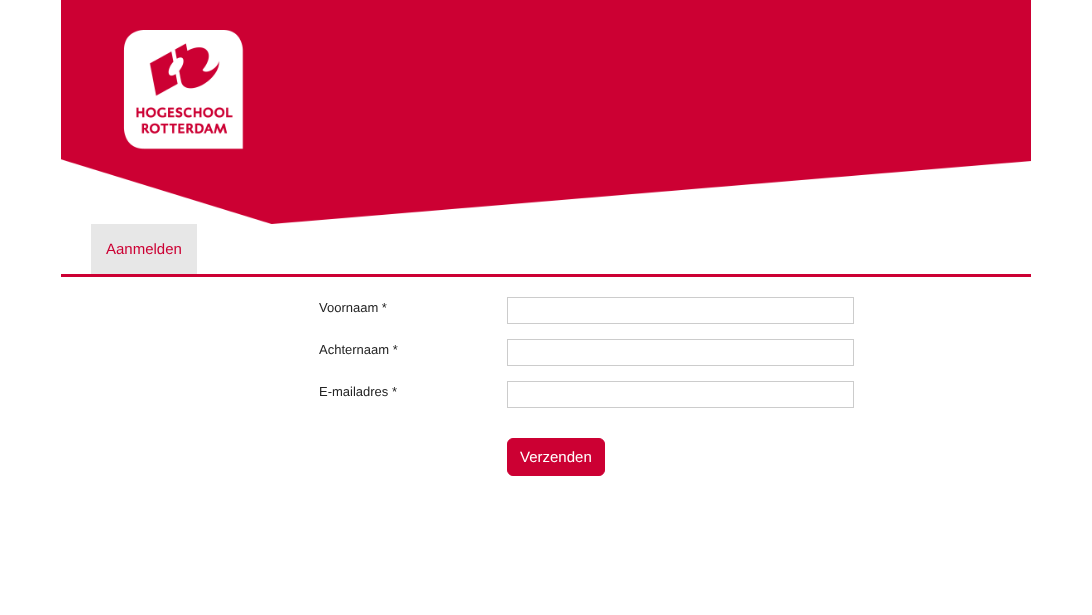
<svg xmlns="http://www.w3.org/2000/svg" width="1092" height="615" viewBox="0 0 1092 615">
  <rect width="100%" height="100%" fill="rgb(255,255,255)"/>
  <rect x="61" y="274" width="970" height="3" fill="rgb(204,0,51)"/>
  <image x="61" y="0" width="970" height="224" href="pic1.png"/>
  <rect x="91" y="224" width="106" height="50" fill="rgb(231,231,231)"/>
  <text x="106" y="254" font-family="Liberation Sans" font-size="15" fill="rgb(204,0,51)">Aanmelden</text>
  <text x="319" y="312" font-family="Liberation Sans" font-size="13" fill="rgb(36,36,36)">Voornaam *</text>
  <rect x="507.5" y="297.5" width="346" height="26" fill="none" stroke="rgb(204,204,204)"/>
  <text x="319" y="354" font-family="Liberation Sans" font-size="13" fill="rgb(36,36,36)">Achternaam *</text>
  <rect x="507.5" y="339.5" width="346" height="26" fill="none" stroke="rgb(204,204,204)"/>
  <text x="319" y="396" font-family="Liberation Sans" font-size="13" fill="rgb(36,36,36)">E-mailadres *</text>
  <rect x="507.5" y="381.5" width="346" height="26" fill="none" stroke="rgb(204,204,204)"/>
  <rect x="507.5" y="438.5" width="97" height="37" rx="5.5" fill="rgb(204,0,51)" stroke="rgb(204,0,51)"/>
  <text x="520" y="462" font-family="Liberation Sans" font-size="15" fill="rgb(255,255,255)">Verzenden</text>
</svg>
